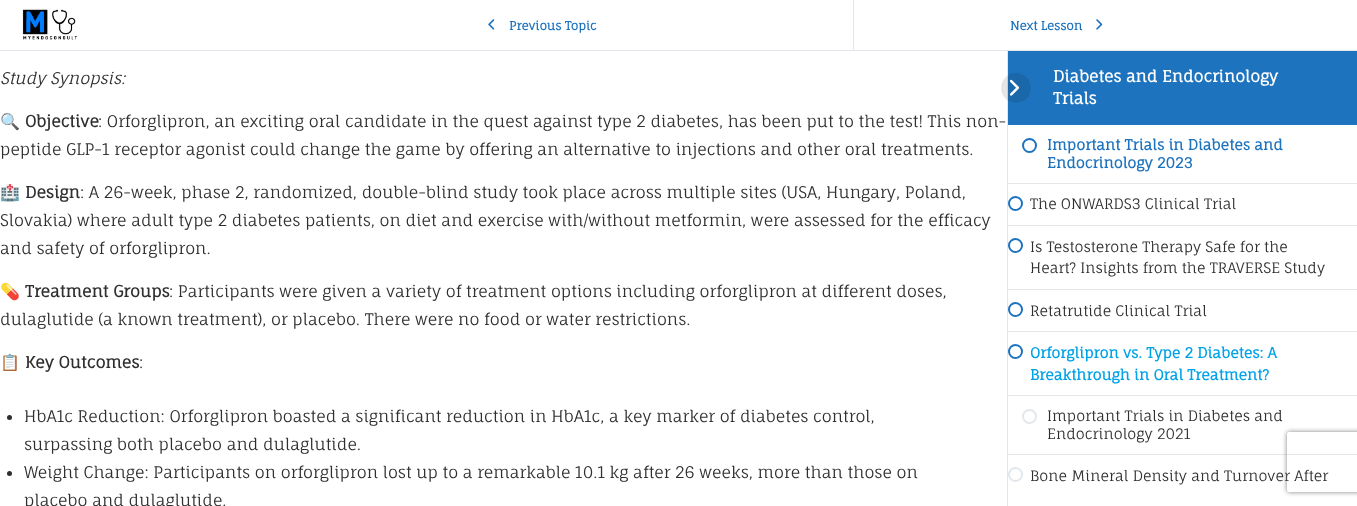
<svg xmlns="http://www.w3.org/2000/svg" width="1357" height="506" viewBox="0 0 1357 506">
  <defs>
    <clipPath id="clip1"><path d="M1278 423H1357V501H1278ZM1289 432H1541C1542 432 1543 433 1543 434V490C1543 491 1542 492 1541 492H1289C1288 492 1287 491 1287 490V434C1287 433 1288 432 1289 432Z" clip-rule="evenodd"/></clipPath>
  </defs>
  <rect width="100%" height="100%" fill="rgb(255,255,255)"/>
  <rect x="0" y="50" width="1357" height="1" fill="rgb(226,231,237)"/>
  <image x="22" y="9" width="56" height="31" href="pic1.png"/>
  <rect x="853" y="0" width="1" height="51" fill="rgb(226,231,237)"/>
  <image x="488" y="19" width="7" height="11" href="pic2.png"/>
  <g font-family="Fauna One" font-size="12" font-weight="bold" fill="rgb(30,115,190)">
    <text x="509" y="30">Previous Topic</text>
    <text x="1010" y="30">Next Lesson</text>
  </g>
  <image x="1096" y="19" width="7" height="11" href="pic3.png"/>
  <text x="0" y="84" font-family="Fauna One" font-size="16" font-style="italic" fill="rgb(47,47,47)">Study Synopsis:</text>
  <text x="0" y="127" font-family="Noto Color Emoji" font-size="16" fill="rgb(47,47,47)">🔍</text>
  <text x="25" y="127" font-family="Fauna One" font-size="16" font-weight="bold" fill="rgb(47,47,47)">Objective</text>
  <g font-family="Fauna One" font-size="16" fill="rgb(47,47,47)">
    <text x="98" y="127">: Orforglipron, an exciting oral candidate in the quest against type 2 diabetes, has been put to the test! This non-</text>
    <text x="0" y="155">peptide GLP-1 receptor agonist could change the game by offering an alternative to injections and other oral treatments.</text>
  </g>
  <text x="0" y="198" font-family="Noto Color Emoji" font-size="16" fill="rgb(47,47,47)">🏥</text>
  <text x="25" y="198" font-family="Fauna One" font-size="16" font-weight="bold" fill="rgb(47,47,47)">Design</text>
  <g font-family="Fauna One" font-size="16" fill="rgb(47,47,47)">
    <text x="80" y="198">: A 26-week, phase 2, randomized, double-blind study took place across multiple sites (USA, Hungary, Poland,</text>
    <text>
      <tspan x="0" y="226">Slovakia) where adult type 2 diabetes patients, on diet and exercise with/without metformin, were assessed for the efficacy</tspan>
      <tspan x="0" y="254">and safety of orforglipron.</tspan>
    </text>
  </g>
  <text x="0" y="297" font-family="Noto Color Emoji" font-size="16" fill="rgb(47,47,47)">💊</text>
  <text x="25" y="297" font-family="Fauna One" font-size="16" font-weight="bold" fill="rgb(47,47,47)">Treatment Groups</text>
  <g font-family="Fauna One" font-size="16" fill="rgb(47,47,47)">
    <text x="169" y="297">: Participants were given a variety of treatment options including orforglipron at different doses,</text>
    <text x="0" y="325">dulaglutide (a known treatment), or placebo. There were no food or water restrictions.</text>
  </g>
  <text x="0" y="368" font-family="Noto Color Emoji" font-size="16" fill="rgb(47,47,47)">📋</text>
  <text x="25" y="368" font-family="Fauna One" font-size="16" font-weight="bold" fill="rgb(47,47,47)">Key Outcomes</text>
  <text x="139" y="368" font-family="Fauna One" font-size="16" fill="rgb(47,47,47)">:</text>
  <circle cx="9.5" cy="417.5" r="2.5" fill="rgb(47,47,47)"/>
  <g font-family="Fauna One" font-size="16" fill="rgb(47,47,47)">
    <text>
      <tspan x="24" y="422">HbA1c Reduction: Orforglipron boasted a significant reduction in HbA1c, a key marker of diabetes control,</tspan>
      <tspan x="24" y="450">surpassing both placebo and dulaglutide.</tspan>
    </text>
  </g>
  <circle cx="9.5" cy="473.5" r="2.5" fill="rgb(47,47,47)"/>
  <g font-family="Fauna One" font-size="16" fill="rgb(47,47,47)">
    <text>
      <tspan x="24" y="478">Weight Change: Participants on orforglipron lost up to a remarkable 10.1 kg after 26 weeks, more than those on</tspan>
      <tspan x="24" y="506">placebo and dulaglutide.</tspan>
    </text>
  </g>
  <rect x="1007" y="51" width="1" height="455" fill="rgb(226,231,237)"/>
  <rect x="1008" y="51" width="349" height="74" fill="rgb(30,115,190)"/>
  <circle cx="1016" cy="88" r="15" fill="rgba(0,0,0,0.1)"/>
  <image x="1009" y="79" width="11" height="17" href="pic4.png"/>
  <g font-family="Fauna One" font-size="15.8" font-weight="bold" fill="rgb(255,255,255)">
    <text>
      <tspan x="1053" y="82">Diabetes and Endocrinology</tspan>
      <tspan x="1053" y="104">Trials</tspan>
    </text>
  </g>
  <rect x="1008" y="395" width="349" height="1" fill="rgb(230,230,230)"/>
  <circle cx="1029.5" cy="145.5" r="6.5" fill="none" stroke="rgb(30,115,190)" stroke-width="2"/>
  <g font-family="Fauna One" font-size="14.4" font-weight="bold" fill="rgb(30,115,190)">
    <text>
      <tspan x="1047" y="150">Important Trials in Diabetes and</tspan>
      <tspan x="1047" y="168">Endocrinology 2023</tspan>
    </text>
  </g>
  <rect x="1008" y="183" width="349" height="1" fill="rgb(230,230,230)"/>
  <circle cx="1015.5" cy="203.5" r="6.5" fill="none" stroke="rgb(30,115,190)" stroke-width="2"/>
  <text x="1030" y="209" font-family="Fauna One" font-size="14.4" fill="rgb(47,47,47)">The ONWARDS3 Clinical Trial</text>
  <rect x="1008" y="225" width="349" height="1" fill="rgb(230,230,230)"/>
  <circle cx="1015.5" cy="245.5" r="6.5" fill="none" stroke="rgb(30,115,190)" stroke-width="2"/>
  <g font-family="Fauna One" font-size="14.4" fill="rgb(47,47,47)">
    <text>
      <tspan x="1030" y="252">Is Testosterone Therapy Safe for the</tspan>
      <tspan x="1030" y="273">Heart? Insights from the TRAVERSE Study</tspan>
    </text>
  </g>
  <rect x="1008" y="289" width="349" height="1" fill="rgb(230,230,230)"/>
  <circle cx="1015.5" cy="309.5" r="6.5" fill="none" stroke="rgb(30,115,190)" stroke-width="2"/>
  <text x="1030" y="316" font-family="Fauna One" font-size="14.4" fill="rgb(47,47,47)">Retatrutide Clinical Trial</text>
  <rect x="1008" y="331" width="349" height="1" fill="rgb(230,230,230)"/>
  <circle cx="1015.5" cy="351.5" r="6.5" fill="none" stroke="rgb(30,115,190)" stroke-width="2"/>
  <g font-family="Fauna One" font-size="14.4" font-weight="bold" fill="rgb(0,162,232)">
    <text>
      <tspan x="1030" y="358">Orforglipron vs. Type 2 Diabetes: A</tspan>
      <tspan x="1030" y="380">Breakthrough in Oral Treatment?</tspan>
    </text>
  </g>
  <circle cx="1029.5" cy="416.5" r="6.5" fill="none" stroke="rgb(226,231,237)" stroke-width="2"/>
  <g font-family="Fauna One" font-size="14.4" fill="rgb(47,47,47)">
    <text>
      <tspan x="1047" y="421">Important Trials in Diabetes and</tspan>
      <tspan x="1047" y="439">Endocrinology 2021</tspan>
    </text>
  </g>
  <rect x="1008" y="454" width="349" height="1" fill="rgb(230,230,230)"/>
  <circle cx="1015.5" cy="474.5" r="6.5" fill="none" stroke="rgb(226,231,237)" stroke-width="2"/>
  <text x="1030" y="481" font-family="Fauna One" font-size="14.4" fill="rgb(47,47,47)">Bone Mineral Density and Turnover After</text>
  <g clip-path="url(#clip1)">
    <rect x="1287" y="432" width="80" height="60" rx="2" fill="rgb(128,128,128)" filter="blur(2.5px)"/>
  </g>
</svg>
